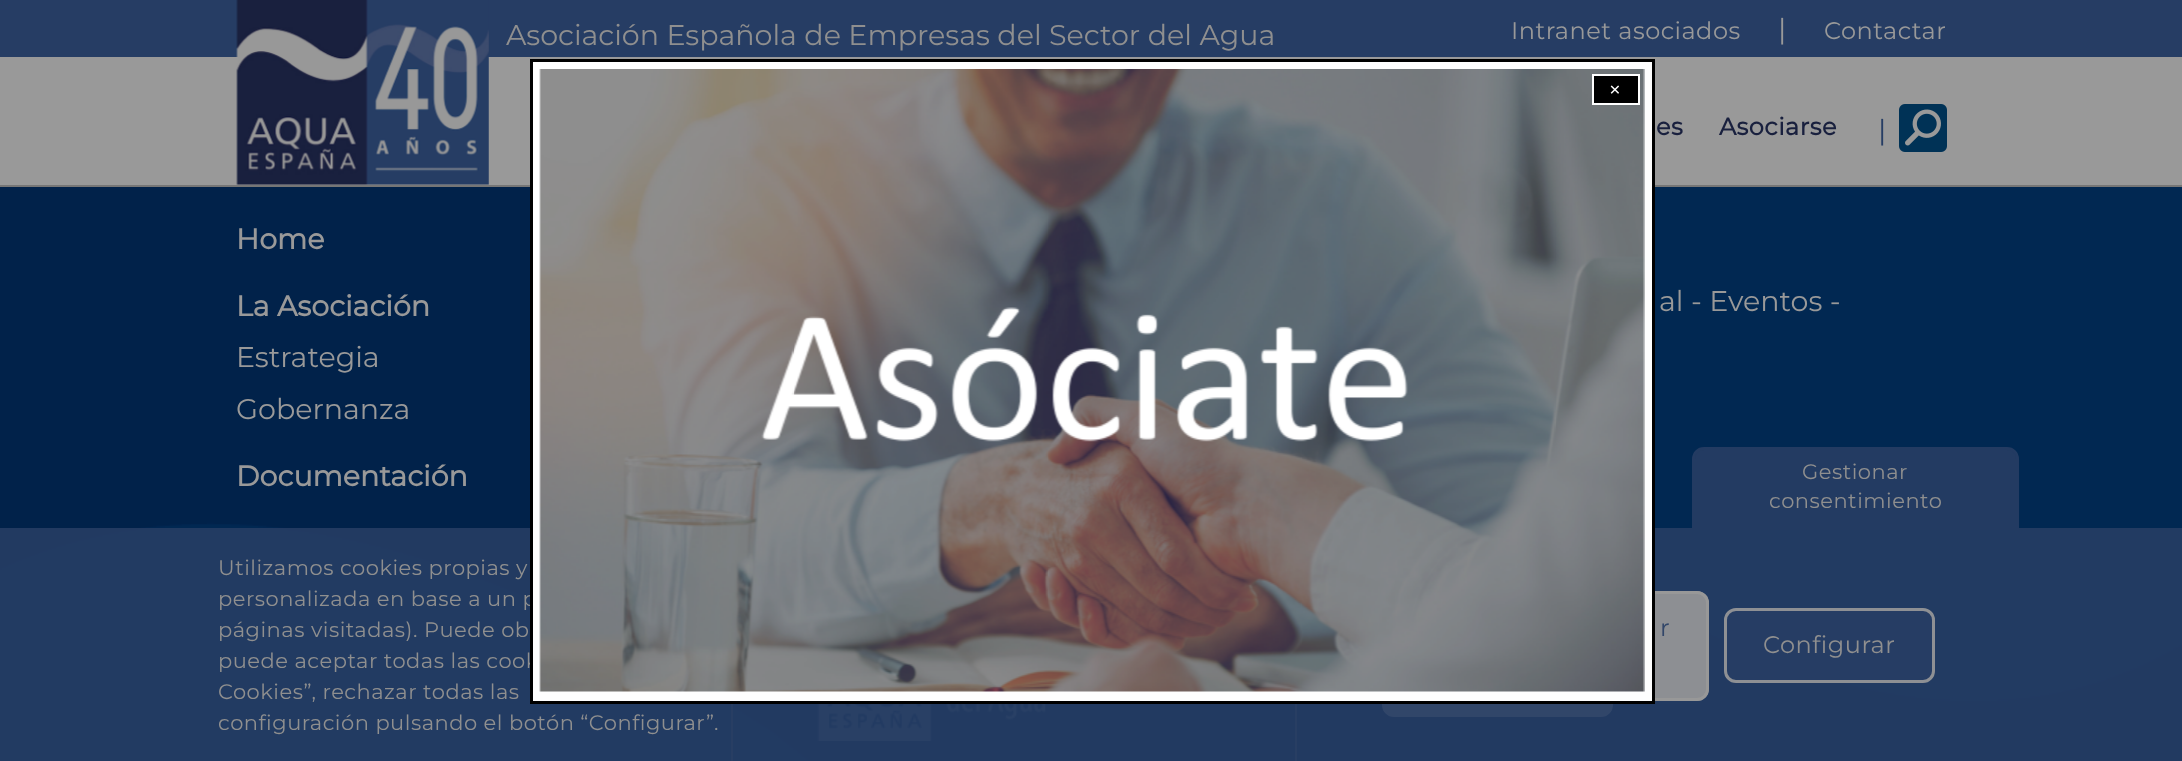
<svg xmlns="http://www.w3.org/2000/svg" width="2182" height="761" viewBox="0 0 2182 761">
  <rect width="100%" height="100%" fill="rgb(255,255,255)"/>
  <rect x="0" y="57" width="2182" height="128" fill="rgb(153,153,153)"/>
  <rect x="0" y="0" width="2182" height="57" fill="rgb(38,61,100)"/>
  <image x="236" y="0" width="253" height="185" href="pic1.png"/>
  <text x="506" y="45" font-family="Montserrat" font-size="28.5" font-weight="100" fill="rgb(143,143,143)">Asociación Española de Empresas del Sector del Agua</text>
  <text x="1511" y="39" font-family="Montserrat" font-size="24" font-weight="100" letter-spacing="0.5" fill="rgb(153,153,153)">Intranet asociados</text>
  <text x="1778" y="39" font-family="Montserrat" font-size="28.5" font-weight="100" fill="rgb(153,153,153)">|</text>
  <text x="1824" y="39" font-family="Montserrat" font-size="24" font-weight="100" letter-spacing="0.5" fill="rgb(153,153,153)">Contactar</text>
  <rect x="0" y="185" width="2182" height="2" fill="rgb(118,118,118)"/>
  <g font-family="Montserrat" font-size="24" font-weight="bold" letter-spacing="0.5" fill="rgb(25,32,62)">
    <text x="1656" y="135">es</text>
    <text x="1719" y="135">Asociarse</text>
  </g>
  <text x="1878" y="140" font-family="Montserrat" font-size="28.5" font-weight="100" fill="rgb(38,61,100)">|</text>
  <image x="1899" y="104" width="48" height="48" href="pic2.png"/>
  <image x="0" y="187" width="2182" height="574" href="pic4.png"/>
  <rect x="1383.5" y="633.5" width="228" height="82" rx="10.5" fill="rgb(153,153,153)" stroke="rgb(153,153,153)" stroke-width="3"/>
  <rect x="731" y="704" width="2" height="57" fill="rgb(67,72,92)"/>
  <rect x="1295" y="704" width="2" height="57" fill="rgb(67,72,92)"/>
  <image x="817" y="704" width="230" height="37" href="pic5.png"/>
  <rect x="0" y="528" width="2182" height="233" fill="rgba(38,61,100,0.9)"/>
  <g font-family="Montserrat" font-size="21" font-weight="100" letter-spacing="0.5" fill="rgb(143,143,143)">
    <text x="218" y="606">personalizada en base a un p</text>
    <text x="218" y="668">puede aceptar todas las cook</text>
  </g>
  <rect x="1515" y="591" width="194" height="110" rx="12" fill="rgba(153,153,153,0.9)"/>
  <rect x="1516.5" y="592.5" width="191" height="107" rx="10.5" fill="none" stroke="rgba(153,153,153,0.9)" stroke-width="3"/>
  <rect x="531.5" y="60.5" width="1122" height="642" fill="rgb(254,254,254)" stroke="rgb(0,0,0)" stroke-width="3"/>
  <image x="539" y="69" width="1106" height="623" href="pic3.png"/>
  <rect x="1593" y="75" width="46" height="29" fill="rgb(0,0,0)" stroke="rgb(255,255,255)" stroke-width="2"/>
  <text x="1608" y="98" font-family="Montserrat" font-size="24" font-weight="100" fill="rgb(255,255,255)">×</text>
  <g font-family="Montserrat" font-size="28.5" font-weight="bold" fill="rgb(153,153,153)">
    <text x="236" y="249">Home</text>
    <text x="236" y="316">La Asociación</text>
  </g>
  <g font-family="Montserrat" font-size="28.5" font-weight="100" fill="rgb(153,153,153)">
    <text>
      <tspan x="236" y="367">Estrategia</tspan>
      <tspan x="236" y="419">Gobernanza</tspan>
    </text>
  </g>
  <text x="236" y="486" font-family="Montserrat" font-size="28.5" font-weight="bold" fill="rgb(153,153,153)">Documentación</text>
  <text x="1659" y="311" font-family="Montserrat" font-size="28.5" font-weight="100" fill="rgb(153,153,153)">al - Eventos -</text>
  <path d="M1704 448.5H2007C2013 448.5 2017.5 453 2017.5 459V528.5H1693.5V459C1693.5 453 1698 448.5 1704 448.5Z" fill="rgb(35,59,98)" stroke="rgb(35,59,98)" stroke-width="3"/>
  <g font-family="Montserrat" font-size="21" font-weight="100" letter-spacing="0.5" fill="rgb(143,143,143)">
    <text x="1802" y="479">Gestionar</text>
    <text x="1769" y="508">consentimiento</text>
    <text x="218" y="575">Utilizamos cookies propias y</text>
    <text x="218" y="637">páginas visitadas). Puede ob</text>
    <text>
      <tspan x="218" y="699">Cookies”, rechazar todas las</tspan>
      <tspan x="218" y="730">configuración pulsando el botón “Configurar”.</tspan>
    </text>
  </g>
  <text x="1660" y="636" font-family="Montserrat" font-size="24" font-weight="100" letter-spacing="0.5" fill="rgb(49,70,105)">r</text>
  <rect x="1725.5" y="609.5" width="208" height="72" rx="10.5" fill="rgb(38,61,100)" stroke="rgb(142,144,148)" stroke-width="3"/>
  <text x="1763" y="653" font-family="Montserrat" font-size="24" font-weight="100" letter-spacing="0.5" fill="rgb(143,143,143)">Configurar</text>
</svg>
